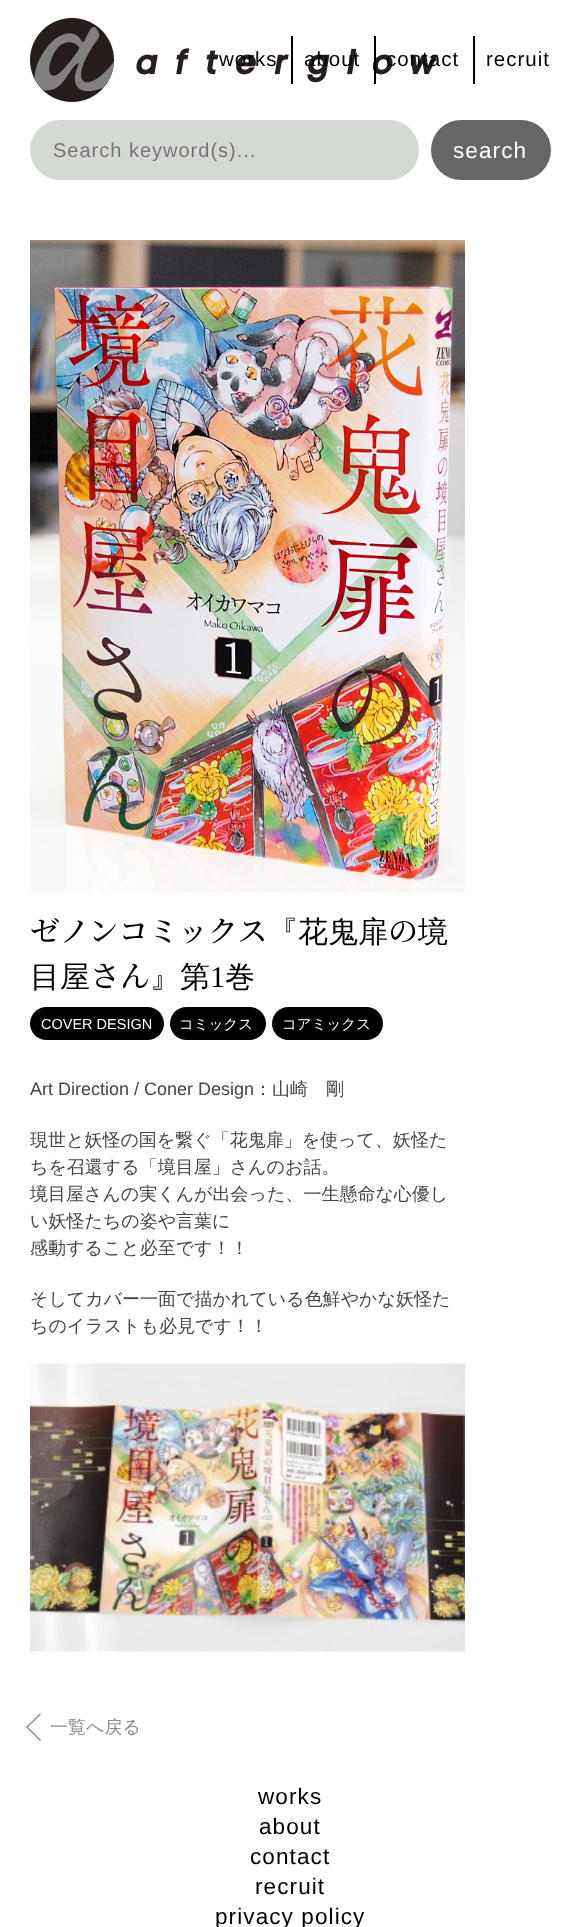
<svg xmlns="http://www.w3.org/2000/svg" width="580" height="1927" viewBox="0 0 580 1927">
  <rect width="100%" height="100%" fill="rgb(255,255,255)"/>
  <image x="30" y="18" width="408" height="84" href="pic1.png"/>
  <text x="219" y="66" font-family="'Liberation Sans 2'" font-size="20.5" letter-spacing="1" fill="rgb(0,0,0)">works</text>
  <rect x="291" y="36" width="2" height="48" fill="rgb(0,0,0)"/>
  <text x="304" y="66" font-family="'Liberation Sans 2'" font-size="20.5" letter-spacing="1" fill="rgb(0,0,0)">about</text>
  <rect x="374" y="36" width="2" height="48" fill="rgb(0,0,0)"/>
  <text x="386" y="66" font-family="'Liberation Sans 2'" font-size="20.5" letter-spacing="1" fill="rgb(0,0,0)">contact</text>
  <rect x="473" y="36" width="2" height="48" fill="rgb(0,0,0)"/>
  <text x="486" y="66" font-family="'Liberation Sans 2'" font-size="20.5" letter-spacing="1" fill="rgb(0,0,0)">recruit</text>
  <rect x="30" y="120" width="389" height="60" rx="30" fill="rgb(213,217,211)"/>
  <text x="53" y="157" font-family="'Liberation Sans 2'" font-size="20" letter-spacing="1" fill="rgb(117,117,117)">Search keyword(s)...</text>
  <rect x="431" y="120" width="120" height="60" rx="30" fill="rgb(102,102,102)"/>
  <text x="453" y="158" font-family="'Liberation Sans 2'" font-size="22.5" letter-spacing="1.1" fill="rgb(255,255,255)">search</text>
  <image x="30" y="240" width="435" height="653" href="pic2.png"/>
  <text x="30" y="942" font-family="Noto Serif JP" font-size="30" font-weight="500" fill="rgb(0,0,0)">ゼノンコミックス</text>
  <text x="268" y="942" font-family="WenQuanYi Zen Hei" font-size="30" font-weight="500" fill="rgb(0,0,0)">『花鬼扉</text>
  <text x="388" y="942" font-family="Noto Serif JP" font-size="30" font-weight="500" fill="rgb(0,0,0)">の</text>
  <g font-family="WenQuanYi Zen Hei" font-size="30" font-weight="500" fill="rgb(0,0,0)">
    <text x="418" y="942">境</text>
    <text x="30" y="987">目屋</text>
  </g>
  <text x="90" y="987" font-family="Noto Serif JP" font-size="30" font-weight="500" fill="rgb(0,0,0)">さん</text>
  <text x="150" y="987" font-family="WenQuanYi Zen Hei" font-size="30" font-weight="500" fill="rgb(0,0,0)">』第</text>
  <text x="210" y="987" font-family="Liberation Serif" font-size="30" fill="rgb(0,0,0)">1</text>
  <text x="225" y="987" font-family="WenQuanYi Zen Hei" font-size="30" font-weight="500" fill="rgb(0,0,0)">巻</text>
  <rect x="30" y="1007" width="134" height="33" rx="16.5" fill="rgb(0,0,0)"/>
  <text x="41" y="1029" font-family="'Liberation Sans 2'" font-size="14.5" fill="rgb(255,255,255)">COVER DESIGN</text>
  <rect x="170" y="1007" width="96" height="33" rx="16.5" fill="rgb(0,0,0)"/>
  <text x="179" y="1029" font-family="WenQuanYi Zen Hei" font-size="14.5" font-weight="500" fill="rgb(255,255,255)">コミックス</text>
  <rect x="272" y="1007" width="111" height="33" rx="16.5" fill="rgb(0,0,0)"/>
  <text x="282" y="1029" font-family="WenQuanYi Zen Hei" font-size="14.5" font-weight="500" fill="rgb(255,255,255)">コアミックス</text>
  <text x="30" y="1095" font-family="Liberation Sans" font-size="18" fill="rgb(69,69,69)">Art Direction / Coner Design</text>
  <g font-family="WenQuanYi Zen Hei" font-size="18" font-weight="500" fill="rgb(69,69,69)">
    <text x="254" y="1095">：山崎　剛</text>
    <text>
      <tspan x="30" y="1146">現世と妖怪の国を繋ぐ「花鬼扉」を使って、妖怪た</tspan>
      <tspan x="30" y="1173">ちを召還する「境目屋」さんのお話。</tspan>
      <tspan x="30" y="1200">境目屋さんの実くんが出会った、一生懸命な心優し</tspan>
      <tspan x="30" y="1227">い妖怪たちの姿や言葉に</tspan>
      <tspan x="30" y="1254">感動すること必至です！！</tspan>
    </text>
    <text>
      <tspan x="30" y="1305">そしてカバー一面で描かれている色鮮やかな妖怪た</tspan>
      <tspan x="30" y="1332">ちのイラストも必見です！！</tspan>
    </text>
  </g>
  <image x="30" y="1363" width="435" height="289" href="pic3.png"/>
  <path d="M27 1726L41 1740L40 1741L26 1727Z" fill="rgb(142,142,142)"/>
  <path d="M40 1713.5L41 1714.5L27 1728L26 1727Z" fill="rgb(142,142,142)"/>
  <text x="50" y="1733" font-family="WenQuanYi Zen Hei" font-size="18" font-weight="500" fill="rgb(142,142,142)">一覧へ戻る</text>
  <g font-family="'Liberation Sans 2'" font-size="22.5" letter-spacing="1.1" fill="rgb(0,0,0)">
    <text x="258" y="1804">works</text>
    <text x="259" y="1834">about</text>
    <text x="250" y="1864">contact</text>
    <text x="255" y="1894">recruit</text>
    <text x="215" y="1924">privacy policy</text>
  </g>
</svg>
